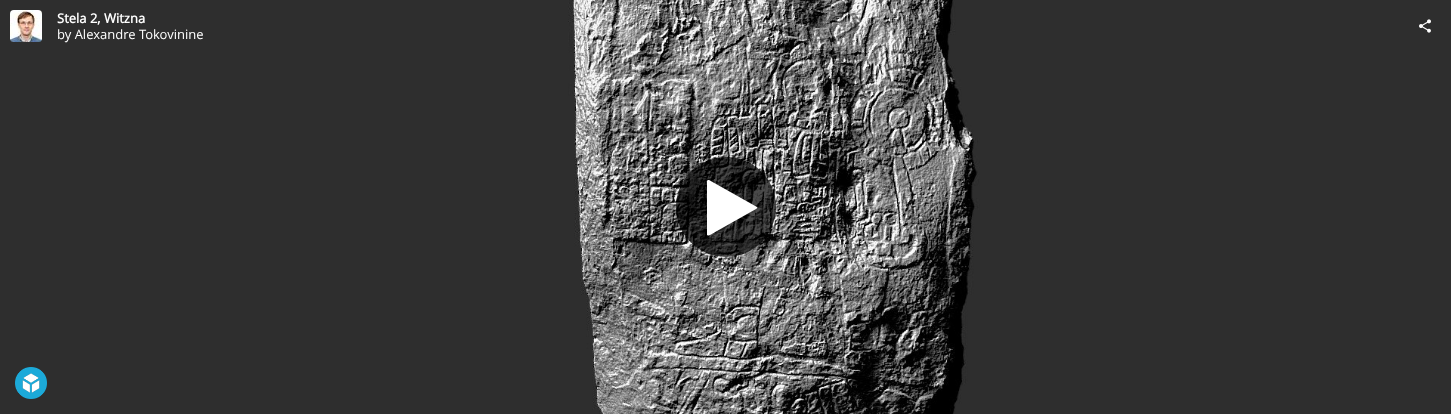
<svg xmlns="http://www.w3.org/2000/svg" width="1451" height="414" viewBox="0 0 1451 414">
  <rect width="100%" height="100%" fill="rgb(255,255,255)"/>
  <image x="0" y="0" width="1451" height="414" href="pic1.png"/>
  <circle cx="726" cy="207" r="50" fill="rgba(0,0,0,0.7)"/>
  <path d="M756 209L717 231C716 231 709 237 707 235V181C707 180 708 180 709 180L757 207C758 208 757 208 756 209Z" fill="rgb(255,255,255)"/>
  <image x="15" y="367" width="32" height="32" href="pic2.png"/>
  <image x="10" y="10" width="32" height="32" href="pic3.png"/>
  <text x="57" y="23" font-family="Open Sans" font-size="13" font-weight="bold" fill="rgb(255,255,255)">Stela 2, Witzna</text>
  <text x="57" y="39" font-family="Open Sans" font-size="13" fill="rgb(255,255,255)">by Alexandre Tokovinine</text>
  <image x="1419" y="19" width="12" height="14" href="pic4.png"/>
</svg>
